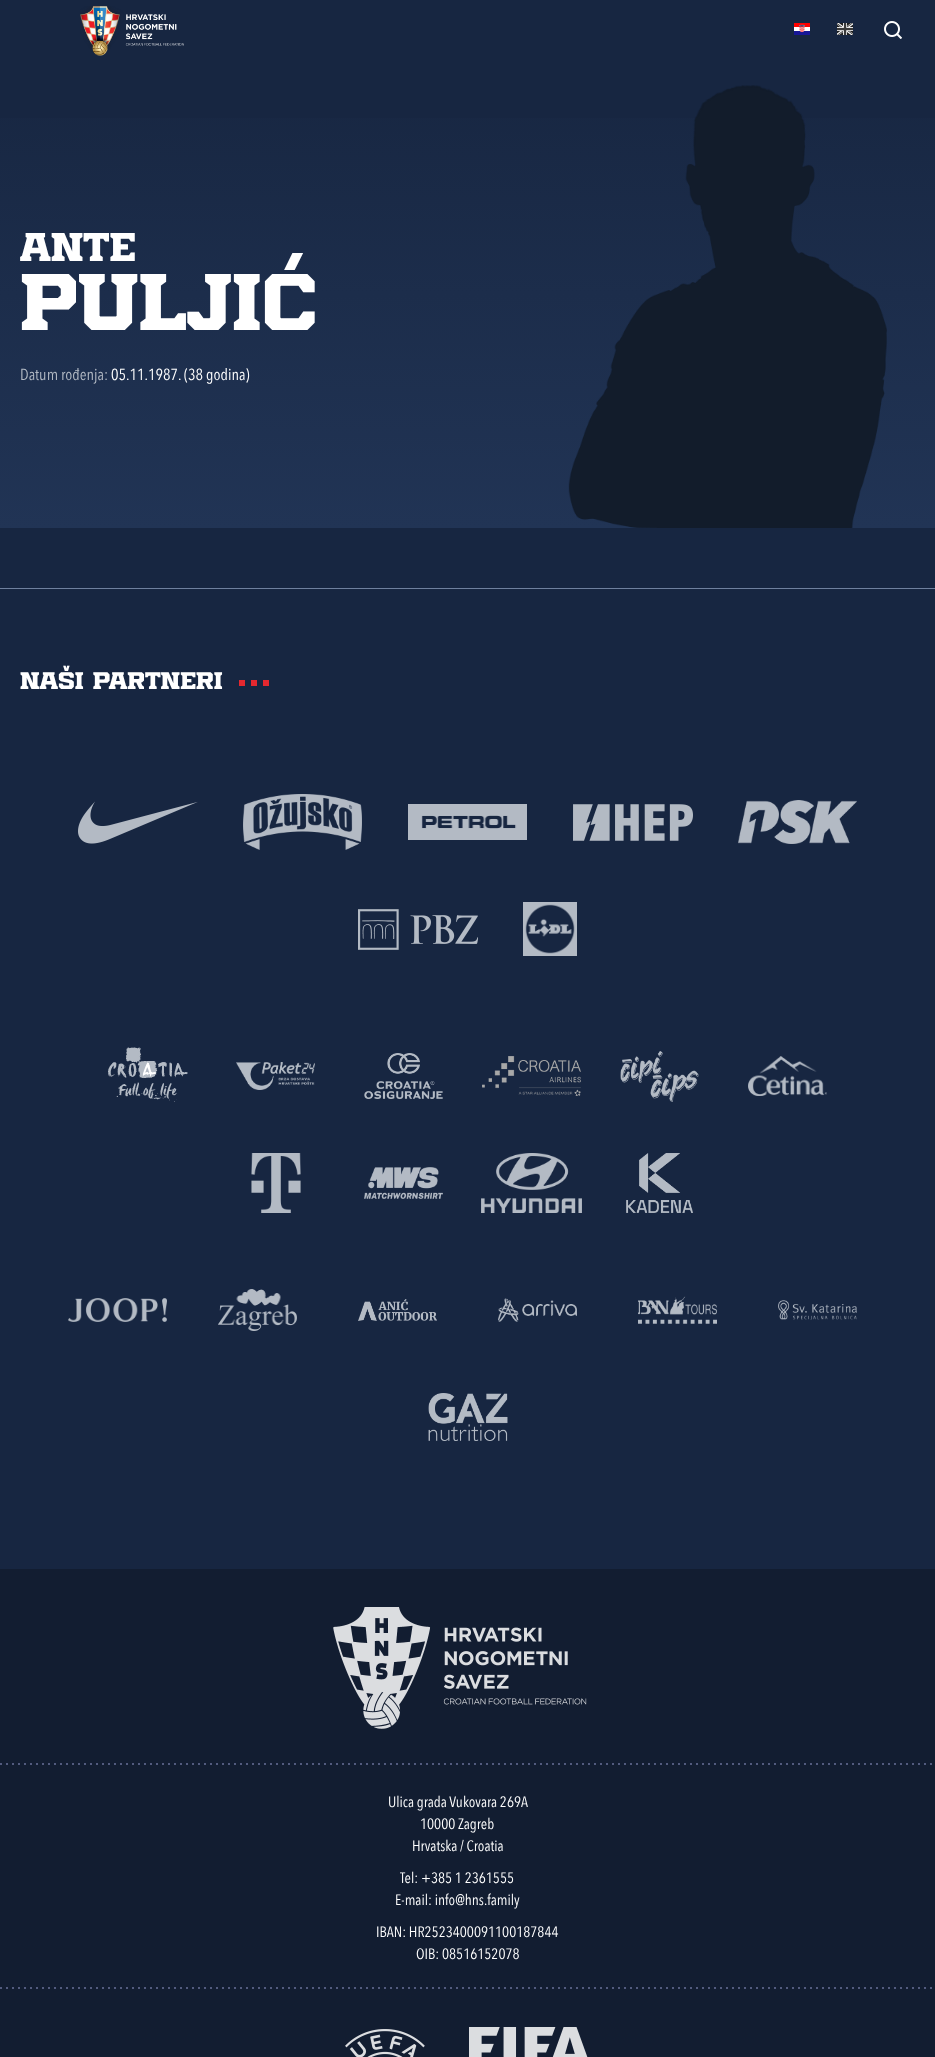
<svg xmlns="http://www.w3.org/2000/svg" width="935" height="2057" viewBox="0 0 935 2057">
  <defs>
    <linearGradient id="g1" gradientUnits="userSpaceOnUse" x1="467" y1="60" x2="468" y2="528"><stop offset="0" stop-color="rgb(23,38,65)"/><stop offset="1" stop-color="rgb(33,52,85)"/></linearGradient>
  </defs>
  <rect width="100%" height="100%" fill="rgb(23,38,65)"/>
  <image x="80" y="6" width="104" height="50" href="pic1.png"/>
  <image x="794" y="23" width="16" height="12" href="pic2.png"/>
  <image x="837" y="23" width="16" height="12" href="pic3.png"/>
  <image x="884" y="21" width="18" height="18" href="pic4.png"/>
  <rect x="0" y="118" width="935" height="410" fill="url(#g1)"/>
  <text x="20" y="261" font-family="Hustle" font-size="40" fill="rgb(255,255,255)">Ante</text>
  <text x="20" y="330" font-family="Hustle" font-size="80" fill="rgb(255,255,255)">Puljić</text>
  <image x="568" y="85" width="319" height="443" href="pic5.png"/>
  <text x="20" y="380" font-family="Avenir Next" font-size="16" fill="rgb(179,186,196)">Datum rođenja:</text>
  <text x="111" y="380" font-family="Avenir Next" font-size="16" fill="rgb(255,255,255)">05.11.1987. (38 godina)</text>
  <rect x="0" y="588" width="935" height="1" fill="rgb(111,128,158)"/>
  <text x="20" y="689" font-family="Hustle" font-size="24" fill="rgb(255,255,255)">Naši partneri</text>
  <rect x="263" y="680" width="6" height="6" fill="rgb(228,40,47)"/>
  <rect x="239" y="680" width="6" height="6" fill="rgb(228,40,47)"/>
  <rect x="251" y="680" width="6" height="6" fill="rgb(228,40,47)"/>
  <image x="78" y="801" width="120" height="43" href="pic6.png"/>
  <image x="243" y="794" width="119" height="56" href="pic7.png"/>
  <image x="408" y="804" width="119" height="36" href="pic8.png"/>
  <image x="573" y="804" width="120" height="37" href="pic9.png"/>
  <image x="738" y="800" width="119" height="44" href="pic10.png"/>
  <image x="358" y="909" width="120" height="41" href="pic11.png"/>
  <image x="523" y="902" width="54" height="54" href="pic12.png"/>
  <image x="108" y="1047" width="80" height="55" href="pic13.png"/>
  <image x="236" y="1062" width="79" height="28" href="pic14.png"/>
  <image x="364" y="1053" width="79" height="46" href="pic15.png"/>
  <image x="482" y="1056" width="99" height="40" href="pic16.png"/>
  <image x="620" y="1051" width="79" height="51" href="pic17.png"/>
  <image x="748" y="1056" width="79" height="40" href="pic18.png"/>
  <image x="251" y="1153" width="50" height="60" href="pic19.png"/>
  <image x="364" y="1167" width="79" height="32" href="pic20.png"/>
  <image x="481" y="1153" width="101" height="60" href="pic21.png"/>
  <image x="626" y="1153" width="67" height="60" href="pic22.png"/>
  <image x="68" y="1298" width="99" height="24" href="pic23.png"/>
  <image x="218" y="1289" width="79" height="42" href="pic24.png"/>
  <image x="358" y="1299" width="79" height="22" href="pic25.png"/>
  <image x="498" y="1298" width="79" height="24" href="pic26.png"/>
  <image x="638" y="1296" width="79" height="28" href="pic27.png"/>
  <image x="778" y="1300" width="79" height="20" href="pic28.png"/>
  <image x="428" y="1393" width="80" height="48" href="pic29.png"/>
  <rect x="0" y="1569" width="935" height="488" fill="rgb(18,29,49)"/>
  <image x="333" y="1607" width="254" height="122" href="pic30.png"/>
  <image x="0" y="1763" width="932" height="2" href="pic31.png"/>
  <g font-family="Avenir Next" font-size="15" fill="rgb(255,255,255)">
    <text x="388" y="1807">Ulica grada Vukovara 269A</text>
    <text x="420" y="1829">10000 Zagreb</text>
    <text x="412" y="1851">Hrvatska / Croatia</text>
    <text x="400" y="1883">Tel: +385 1 2361555</text>
    <text x="395" y="1905">E-mail: info@hns.family</text>
    <text x="376" y="1937">IBAN: HR2523400091100187844</text>
    <text x="416" y="1959">OIB: 08516152078</text>
  </g>
  <image x="0" y="1987" width="932" height="2" href="pic31.png"/>
  <image x="345" y="2029" width="80" height="28" href="pic32.png"/>
  <image x="469" y="2027" width="119" height="30" href="pic33.png"/>
</svg>
